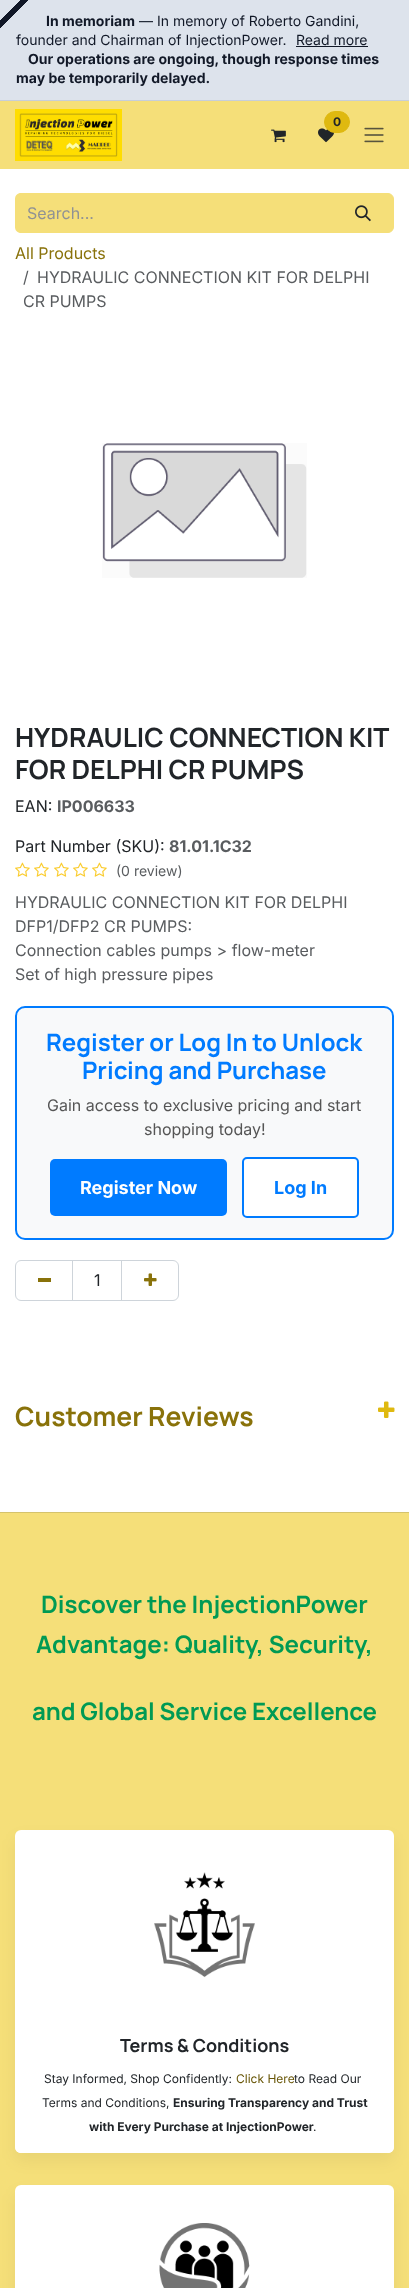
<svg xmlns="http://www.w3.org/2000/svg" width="409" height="2288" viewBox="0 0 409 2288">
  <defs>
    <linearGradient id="g1" gradientUnits="userSpaceOnUse" x1="0" y1="0" x2="28" y2="28"><stop offset="0" stop-color="rgb(17,24,39)"/><stop offset="0.5" stop-color="rgb(17,24,39)"/><stop offset="0.51" stop-color="rgb(221,227,236)"/></linearGradient>
    <linearGradient id="g2" gradientUnits="userSpaceOnUse" x1="0" y1="0" x2="20" y2="20"><stop offset="0" stop-color="rgb(221,227,236)"/><stop offset="0.5" stop-color="rgb(221,227,236)"/><stop offset="0.51" stop-color="rgb(221,227,236)" stop-opacity="0"/></linearGradient>
  </defs>
  <rect width="100%" height="100%" fill="rgb(255,255,255)"/>
  <rect x="0" y="0" width="409" height="100" fill="rgb(221,227,236)"/>
  <rect x="0" y="100" width="409" height="1" fill="rgb(199,206,217)"/>
  <rect x="0" y="0" width="28" height="28" fill="url(#g1)"/>
  <rect x="0" y="0" width="20" height="20" fill="url(#g2)"/>
  <text x="46" y="26" font-family="Inter" font-size="14" font-weight="bold" fill="rgb(17,24,39)">In memoriam</text>
  <g font-family="Inter" font-size="14" fill="rgb(17,24,39)">
    <text x="139" y="26">— In memory of Roberto Gandini,</text>
    <text x="16" y="45">founder and Chairman of InjectionPower.</text>
    <text x="296" y="45">Read more</text>
  </g>
  <rect x="296" y="46" width="72" height="1" fill="rgb(17,24,39)"/>
  <g font-family="Inter" font-size="14" font-weight="bold" fill="rgb(17,24,39)">
    <text x="28" y="64">Our operations are ongoing, though response times</text>
    <text x="16" y="83">may be temporarily delayed.</text>
  </g>
  <rect x="0" y="101" width="409" height="68" fill="rgb(245,223,121)"/>
  <image x="15" y="109" width="107" height="52" href="pic1.png"/>
  <image x="318" y="128" width="16" height="15" href="pic2.png"/>
  <rect x="324.5" y="111.5" width="25" height="21" rx="10.5" fill="rgb(223,185,16)" stroke="rgb(223,185,16)"/>
  <text x="333" y="126" font-family="Inter" font-size="12" font-weight="bold" fill="rgb(33,37,41)">0</text>
  <image x="271" y="129" width="15" height="14" href="pic3.png"/>
  <image x="364" y="127" width="20" height="16" href="pic4.png"/>
  <path d="M21 193H334V233H21C17.5 233 15 230.5 15 227V199C15 195.5 17.5 193 21 193Z" fill="rgb(245,223,121)"/>
  <text x="27" y="219" font-family="Inter" font-size="16" fill="rgb(144,146,148)">Search...</text>
  <path d="M333.5 193.5H388C391 193.5 393.5 196 393.5 199V227C393.5 230 391 232.5 388 232.5H333.5Z" fill="rgb(245,223,121)" stroke="rgb(245,223,121)"/>
  <image x="355" y="205" width="16" height="17" href="pic5.png"/>
  <text x="15" y="259" font-family="Inter" font-size="16" fill="rgb(137,114,10)">All Products</text>
  <g font-family="Inter" font-size="16" fill="rgb(89,92,95)">
    <text x="23" y="283">/</text>
    <text x="37" y="283">HYDRAULIC CONNECTION KIT FOR DELPHI</text>
    <text x="23" y="307">CR PUMPS</text>
  </g>
  <image x="102" y="443" width="205" height="135" href="pic6.png"/>
  <g font-family="Manrope" font-size="26.5" font-weight="bold" fill="rgb(33,37,41)">
    <text>
      <tspan x="15" y="747">HYDRAULIC CONNECTION KIT</tspan>
      <tspan x="15" y="779">FOR DELPHI CR PUMPS</tspan>
    </text>
  </g>
  <text x="15" y="812" font-family="Inter" font-size="16" fill="rgb(33,37,41)">EAN:</text>
  <text x="57" y="812" font-family="Inter" font-size="16" font-weight="bold" fill="rgb(89,92,95)">IP006633</text>
  <text x="15" y="852" font-family="Inter" font-size="16" fill="rgb(33,37,41)">Part Number (SKU):</text>
  <text x="169" y="852" font-family="Inter" font-size="16" font-weight="bold" fill="rgb(89,92,95)">81.01.1C32</text>
  <image x="15" y="862" width="15" height="15" href="pic7.png"/>
  <image x="34" y="862" width="15" height="15" href="pic7.png"/>
  <image x="54" y="862" width="15" height="15" href="pic7.png"/>
  <image x="73" y="862" width="15" height="15" href="pic7.png"/>
  <image x="92" y="862" width="15" height="15" href="pic7.png"/>
  <text x="116" y="876" font-family="Inter" font-size="14" fill="rgb(89,92,95)">(0 review)</text>
  <g font-family="Inter" font-size="16" fill="rgb(89,92,95)">
    <text>
      <tspan x="15" y="908">HYDRAULIC CONNECTION KIT FOR DELPHI</tspan>
      <tspan x="15" y="932">DFP1/DFP2 CR PUMPS:</tspan>
      <tspan x="15" y="956">Connection cables pumps &gt; flow-meter</tspan>
      <tspan x="15" y="980">Set of high pressure pipes</tspan>
    </text>
  </g>
  <rect x="16" y="1007" width="377" height="232" rx="9" fill="rgb(248,249,250)" stroke="rgb(0,123,255)" stroke-width="2"/>
  <g font-family="Manrope" font-size="24" font-weight="bold" fill="rgb(0,123,255)">
    <text x="46" y="1051">Register or Log In to Unlock</text>
    <text x="82" y="1079">Pricing and Purchase</text>
  </g>
  <g font-family="Inter" font-size="16" fill="rgb(85,85,85)">
    <text x="47" y="1111">Gain access to exclusive pricing and start</text>
    <text x="144" y="1135">shopping today!</text>
  </g>
  <rect x="50" y="1159" width="177" height="57" rx="5" fill="rgb(0,123,255)"/>
  <text x="80" y="1194" font-family="Inter" font-size="18" font-weight="bold" fill="rgb(255,255,255)">Register Now</text>
  <rect x="243" y="1158" width="115" height="59" rx="4" fill="rgb(255,255,255)" stroke="rgb(0,123,255)" stroke-width="2"/>
  <text x="274" y="1194" font-family="Inter" font-size="18" font-weight="bold" fill="rgb(0,123,255)">Log In</text>
  <rect x="72.5" y="1260.5" width="49" height="40" fill="none" stroke="rgb(206,212,218)"/>
  <path d="M21 1260.5H72.5V1300.5H21C18 1300.5 15.5 1298 15.5 1295V1266C15.5 1263 18 1260.5 21 1260.5Z" fill="none" stroke="rgb(206,212,218)"/>
  <rect x="38" y="1278" width="13" height="4" fill="rgb(137,114,10)"/>
  <text x="94" y="1286" font-family="Inter" font-size="16" fill="rgb(33,37,41)">1</text>
  <path d="M121.5 1260.5H173C176 1260.5 178.5 1263 178.5 1266V1295C178.5 1298 176 1300.5 173 1300.5H121.5Z" fill="none" stroke="rgb(206,212,218)"/>
  <image x="144" y="1273" width="13" height="13" href="pic8.png"/>
  <text x="15" y="1426" font-family="Manrope" font-size="26.5" font-weight="bold" fill="rgb(137,114,10)">Customer Reviews</text>
  <image x="378" y="1401" width="17" height="17" href="pic9.png"/>
  <rect x="0" y="1513" width="409" height="775" fill="rgb(245,223,121)"/>
  <rect x="0" y="1512" width="409" height="1" fill="rgb(213,195,109)"/>
  <g font-family="Manrope" font-size="24" font-weight="bold" fill="rgb(0,154,84)">
    <text x="41" y="1613">Discover the InjectionPower</text>
    <text x="36" y="1653">Advantage: Quality, Security,</text>
    <text x="32" y="1720">and Global Service Excellence</text>
  </g>
  <rect x="15" y="1838" width="379" height="323" rx="6" fill="rgba(0,0,0,0.05)" filter="blur(8px)"/>
  <rect x="15" y="1830" width="379" height="323" rx="6" fill="rgb(255,255,255)"/>
  <image x="154" y="1872" width="101" height="106" href="pic10.png"/>
  <path d="M15 2019H394V2147C394 2150.5 391.5 2153 388 2153H21C17.5 2153 15 2150.5 15 2147Z" fill="rgba(255,255,255,0.9)"/>
  <text x="120" y="2052" font-family="Manrope" font-size="18" font-weight="bold" fill="rgb(33,37,41)">Terms &amp; Conditions</text>
  <text x="44" y="2083" font-family="Inter" font-size="12" fill="rgb(33,37,41)">Stay Informed, Shop Confidently: </text>
  <text x="236" y="2083" font-family="Inter" font-size="12" fill="rgb(104,86,7)">Click Here</text>
  <g font-family="Inter" font-size="12" fill="rgb(33,37,41)">
    <text x="294" y="2083"> to Read Our</text>
    <text x="42" y="2107">Terms and Conditions,</text>
  </g>
  <g font-family="Inter" font-size="12" font-weight="bold" fill="rgb(33,37,41)">
    <text x="173" y="2107">Ensuring Transparency and Trust</text>
    <text x="89" y="2131">with Every Purchase at InjectionPower</text>
  </g>
  <text x="313" y="2131" font-family="Inter" font-size="12" fill="rgb(33,37,41)">.</text>
  <rect x="15" y="2193" width="379" height="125" rx="6" fill="rgba(0,0,0,0.05)" filter="blur(8px)"/>
  <rect x="15" y="2185" width="379" height="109" rx="6" fill="rgb(255,255,255)"/>
  <image x="159" y="2223" width="91" height="65" href="pic11.png"/>
</svg>
